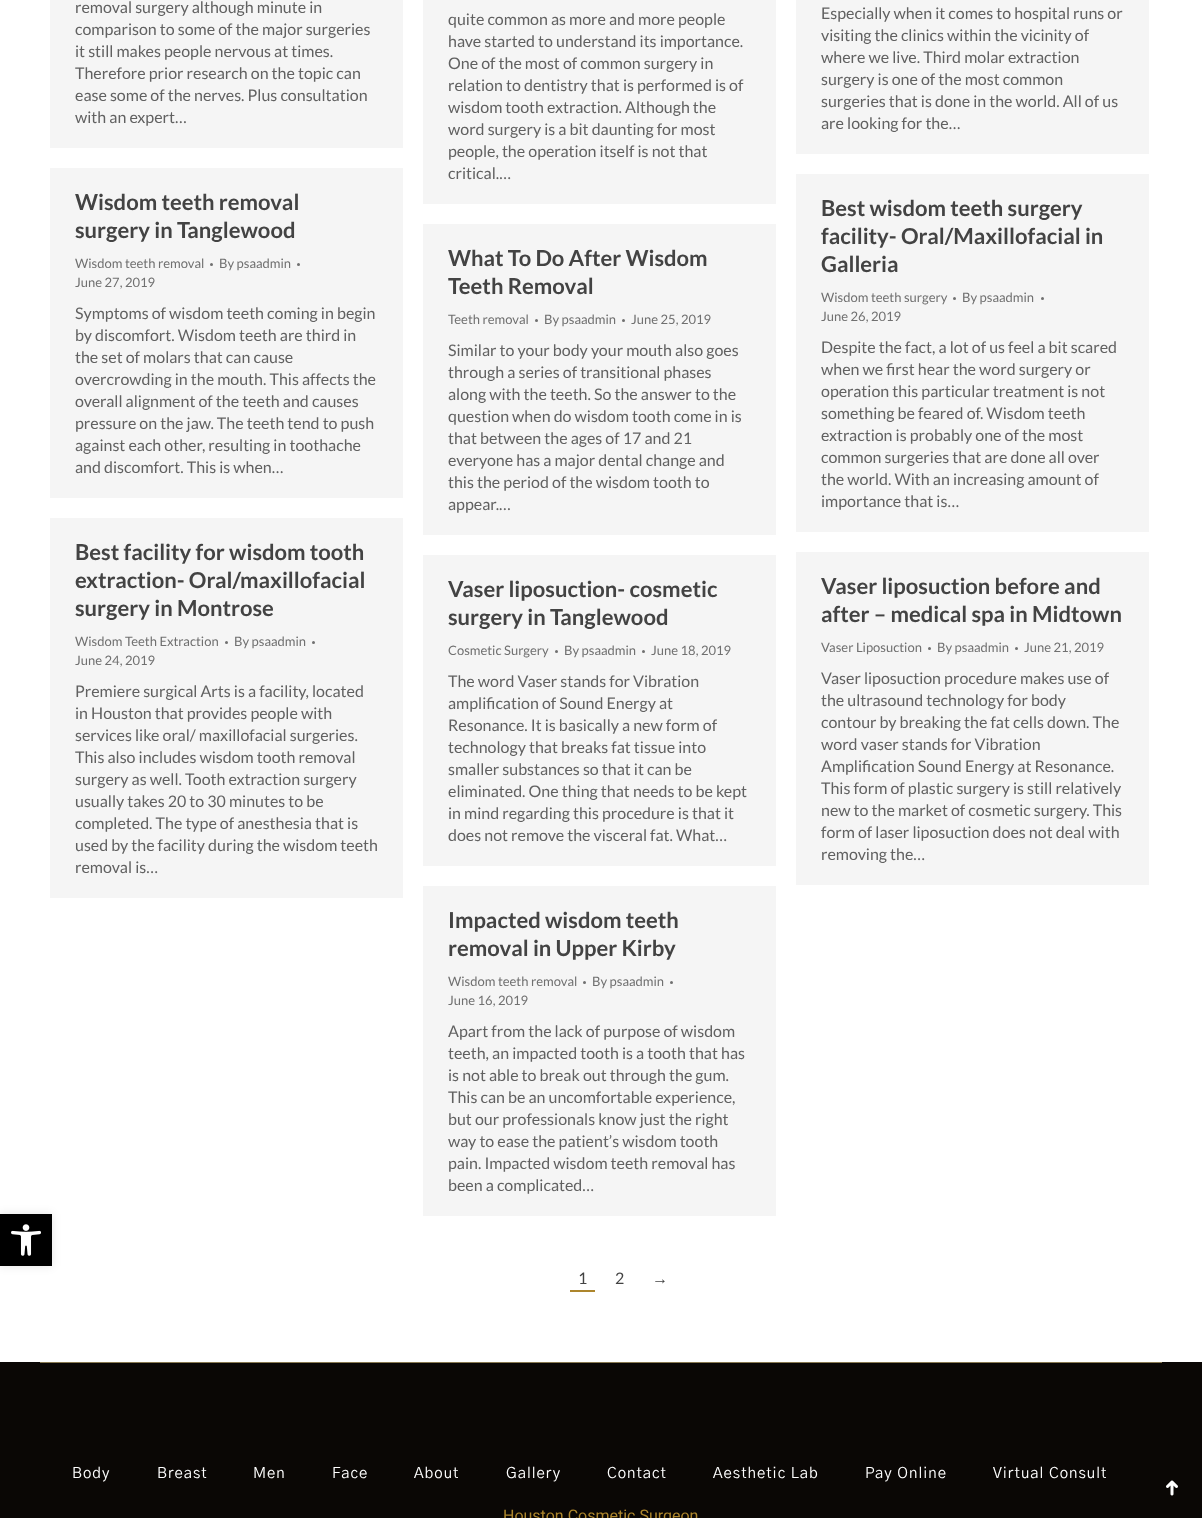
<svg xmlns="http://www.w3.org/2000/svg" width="1202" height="1518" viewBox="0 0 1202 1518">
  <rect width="100%" height="100%" fill="rgb(255,255,255)"/>
  <rect x="0" y="1214" width="52" height="52" fill="rgba(0,0,0,0.1)" filter="blur(5px)"/>
  <rect x="0" y="1214" width="52" height="52" fill="rgb(0,0,0)"/>
  <image x="11" y="1224" width="30" height="32" href="pic1.png"/>
  <rect x="50" y="0" width="353" height="148" fill="rgb(245,245,245)"/>
  <g font-family="Lato" font-size="16" fill="rgb(97,97,97)">
    <text>
      <tspan x="75" y="13">removal surgery although minute in</tspan>
      <tspan x="75" y="35">comparison to some of the major surgeries</tspan>
      <tspan x="75" y="57">it still makes people nervous at times.</tspan>
      <tspan x="75" y="79">Therefore prior research on the topic can</tspan>
      <tspan x="75" y="101">ease some of the nerves. Plus consultation</tspan>
      <tspan x="75" y="123">with an expert…</tspan>
    </text>
  </g>
  <rect x="423" y="0" width="353" height="204" fill="rgb(245,245,245)"/>
  <g font-family="Lato" font-size="16" fill="rgb(97,97,97)">
    <text>
      <tspan x="448" y="25">quite common as more and more people</tspan>
      <tspan x="448" y="47">have started to understand its importance.</tspan>
      <tspan x="448" y="69">One of the most of common surgery in</tspan>
      <tspan x="448" y="91">relation to dentistry that is performed is of</tspan>
      <tspan x="448" y="113">wisdom tooth extraction. Although the</tspan>
      <tspan x="448" y="135">word surgery is a bit daunting for most</tspan>
      <tspan x="448" y="157">people, the operation itself is not that</tspan>
      <tspan x="448" y="179">critical.…</tspan>
    </text>
  </g>
  <rect x="796" y="0" width="353" height="154" fill="rgb(245,245,245)"/>
  <g font-family="Lato" font-size="16" fill="rgb(97,97,97)">
    <text>
      <tspan x="821" y="19">Especially when it comes to hospital runs or</tspan>
      <tspan x="821" y="41">visiting the clinics within the vicinity of</tspan>
      <tspan x="821" y="63">where we live. Third molar extraction</tspan>
      <tspan x="821" y="85">surgery is one of the most common</tspan>
      <tspan x="821" y="107">surgeries that is done in the world. All of us</tspan>
      <tspan x="821" y="129">are looking for the…</tspan>
    </text>
  </g>
  <rect x="50" y="168" width="353" height="330" fill="rgb(245,245,245)"/>
  <g font-family="Lato" font-size="22" font-weight="bold" fill="rgb(67,67,67)">
    <text>
      <tspan x="75" y="210">Wisdom teeth removal</tspan>
      <tspan x="75" y="238">surgery in Tanglewood</tspan>
    </text>
  </g>
  <text x="75" y="268" font-family="Lato" font-size="13" fill="rgb(112,112,112)">Wisdom teeth removal</text>
  <circle cx="211.5" cy="264.5" r="1.5" fill="rgb(112,112,112)"/>
  <text x="219" y="268" font-family="Lato" font-size="13" fill="rgb(112,112,112)">By psaadmin</text>
  <circle cx="298.5" cy="264.5" r="1.5" fill="rgb(112,112,112)"/>
  <text x="75" y="287" font-family="Lato" font-size="13" fill="rgb(112,112,112)">June 27, 2019</text>
  <g font-family="Lato" font-size="16" fill="rgb(97,97,97)">
    <text>
      <tspan x="75" y="319">Symptoms of wisdom teeth coming in begin</tspan>
      <tspan x="75" y="341">by discomfort. Wisdom teeth are third in</tspan>
      <tspan x="75" y="363">the set of molars that can cause</tspan>
      <tspan x="75" y="385">overcrowding in the mouth. This affects the</tspan>
      <tspan x="75" y="407">overall alignment of the teeth and causes</tspan>
      <tspan x="75" y="429">pressure on the jaw. The teeth tend to push</tspan>
      <tspan x="75" y="451">against each other, resulting in toothache</tspan>
      <tspan x="75" y="473">and discomfort. This is when…</tspan>
    </text>
  </g>
  <rect x="423" y="224" width="353" height="311" fill="rgb(245,245,245)"/>
  <g font-family="Lato" font-size="22" font-weight="bold" fill="rgb(67,67,67)">
    <text>
      <tspan x="448" y="266">What To Do After Wisdom</tspan>
      <tspan x="448" y="294">Teeth Removal</tspan>
    </text>
  </g>
  <text x="448" y="324" font-family="Lato" font-size="13" fill="rgb(112,112,112)">Teeth removal</text>
  <circle cx="536.5" cy="320.5" r="1.5" fill="rgb(112,112,112)"/>
  <text x="544" y="324" font-family="Lato" font-size="13" fill="rgb(112,112,112)">By psaadmin</text>
  <circle cx="623.5" cy="320.5" r="1.5" fill="rgb(112,112,112)"/>
  <text x="631" y="324" font-family="Lato" font-size="13" fill="rgb(112,112,112)">June 25, 2019</text>
  <g font-family="Lato" font-size="16" fill="rgb(97,97,97)">
    <text>
      <tspan x="448" y="356">Similar to your body your mouth also goes</tspan>
      <tspan x="448" y="378">through a series of transitional phases</tspan>
      <tspan x="448" y="400">along with the teeth. So the answer to the</tspan>
      <tspan x="448" y="422">question when do wisdom tooth come in is</tspan>
      <tspan x="448" y="444">that between the ages of 17 and 21</tspan>
      <tspan x="448" y="466">everyone has a major dental change and</tspan>
      <tspan x="448" y="488">this the period of the wisdom tooth to</tspan>
      <tspan x="448" y="510">appear.…</tspan>
    </text>
  </g>
  <rect x="796" y="174" width="353" height="358" fill="rgb(245,245,245)"/>
  <g font-family="Lato" font-size="22" font-weight="bold" fill="rgb(67,67,67)">
    <text>
      <tspan x="821" y="216">Best wisdom teeth surgery</tspan>
      <tspan x="821" y="244">facility- Oral/Maxillofacial in</tspan>
      <tspan x="821" y="272">Galleria</tspan>
    </text>
  </g>
  <text x="821" y="302" font-family="Lato" font-size="13" fill="rgb(112,112,112)">Wisdom teeth surgery</text>
  <circle cx="954.5" cy="298.5" r="1.5" fill="rgb(112,112,112)"/>
  <text x="962" y="302" font-family="Lato" font-size="13" fill="rgb(112,112,112)">By psaadmin</text>
  <circle cx="1042.5" cy="298.5" r="1.5" fill="rgb(112,112,112)"/>
  <text x="821" y="321" font-family="Lato" font-size="13" fill="rgb(112,112,112)">June 26, 2019</text>
  <g font-family="Lato" font-size="16" fill="rgb(97,97,97)">
    <text>
      <tspan x="821" y="353">Despite the fact, a lot of us feel a bit scared</tspan>
      <tspan x="821" y="375">when we first hear the word surgery or</tspan>
      <tspan x="821" y="397">operation this particular treatment is not</tspan>
      <tspan x="821" y="419">something be feared of. Wisdom teeth</tspan>
      <tspan x="821" y="441">extraction is probably one of the most</tspan>
      <tspan x="821" y="463">common surgeries that are done all over</tspan>
      <tspan x="821" y="485">the world. With an increasing amount of</tspan>
      <tspan x="821" y="507">importance that is…</tspan>
    </text>
  </g>
  <rect x="50" y="518" width="353" height="380" fill="rgb(245,245,245)"/>
  <g font-family="Lato" font-size="22" font-weight="bold" fill="rgb(67,67,67)">
    <text>
      <tspan x="75" y="560">Best facility for wisdom tooth</tspan>
      <tspan x="75" y="588">extraction- Oral/maxillofacial</tspan>
      <tspan x="75" y="616">surgery in Montrose</tspan>
    </text>
  </g>
  <text x="75" y="646" font-family="Lato" font-size="13" fill="rgb(112,112,112)">Wisdom Teeth Extraction</text>
  <circle cx="226.5" cy="642.5" r="1.5" fill="rgb(112,112,112)"/>
  <text x="234" y="646" font-family="Lato" font-size="13" fill="rgb(112,112,112)">By psaadmin</text>
  <circle cx="313.5" cy="642.5" r="1.5" fill="rgb(112,112,112)"/>
  <text x="75" y="665" font-family="Lato" font-size="13" fill="rgb(112,112,112)">June 24, 2019</text>
  <g font-family="Lato" font-size="16" fill="rgb(97,97,97)">
    <text>
      <tspan x="75" y="697">Premiere surgical Arts is a facility, located</tspan>
      <tspan x="75" y="719">in Houston that provides people with</tspan>
      <tspan x="75" y="741">services like oral/ maxillofacial surgeries.</tspan>
      <tspan x="75" y="763">This also includes wisdom tooth removal</tspan>
      <tspan x="75" y="785">surgery as well. Tooth extraction surgery</tspan>
      <tspan x="75" y="807">usually takes 20 to 30 minutes to be</tspan>
      <tspan x="75" y="829">completed. The type of anesthesia that is</tspan>
      <tspan x="75" y="851">used by the facility during the wisdom teeth</tspan>
      <tspan x="75" y="873">removal is…</tspan>
    </text>
  </g>
  <rect x="423" y="555" width="353" height="311" fill="rgb(245,245,245)"/>
  <g font-family="Lato" font-size="22" font-weight="bold" fill="rgb(67,67,67)">
    <text>
      <tspan x="448" y="597">Vaser liposuction- cosmetic</tspan>
      <tspan x="448" y="625">surgery in Tanglewood</tspan>
    </text>
  </g>
  <text x="448" y="655" font-family="Lato" font-size="13" fill="rgb(112,112,112)">Cosmetic Surgery</text>
  <circle cx="556.5" cy="651.5" r="1.5" fill="rgb(112,112,112)"/>
  <text x="564" y="655" font-family="Lato" font-size="13" fill="rgb(112,112,112)">By psaadmin</text>
  <circle cx="643.5" cy="651.5" r="1.5" fill="rgb(112,112,112)"/>
  <text x="651" y="655" font-family="Lato" font-size="13" fill="rgb(112,112,112)">June 18, 2019</text>
  <g font-family="Lato" font-size="16" fill="rgb(97,97,97)">
    <text>
      <tspan x="448" y="687">The word Vaser stands for Vibration</tspan>
      <tspan x="448" y="709">amplification of Sound Energy at</tspan>
      <tspan x="448" y="731">Resonance. It is basically a new form of</tspan>
      <tspan x="448" y="753">technology that breaks fat tissue into</tspan>
      <tspan x="448" y="775">smaller substances so that it can be</tspan>
      <tspan x="448" y="797">eliminated. One thing that needs to be kept</tspan>
      <tspan x="448" y="819">in mind regarding this procedure is that it</tspan>
      <tspan x="448" y="841">does not remove the visceral fat. What…</tspan>
    </text>
  </g>
  <rect x="796" y="552" width="353" height="333" fill="rgb(245,245,245)"/>
  <g font-family="Lato" font-size="22" font-weight="bold" fill="rgb(67,67,67)">
    <text>
      <tspan x="821" y="594">Vaser liposuction before and</tspan>
      <tspan x="821" y="622">after – medical spa in Midtown</tspan>
    </text>
  </g>
  <text x="821" y="652" font-family="Lato" font-size="13" fill="rgb(112,112,112)">Vaser Liposuction</text>
  <circle cx="929.5" cy="648.5" r="1.5" fill="rgb(112,112,112)"/>
  <text x="937" y="652" font-family="Lato" font-size="13" fill="rgb(112,112,112)">By psaadmin</text>
  <circle cx="1016.5" cy="648.5" r="1.5" fill="rgb(112,112,112)"/>
  <text x="1024" y="652" font-family="Lato" font-size="13" fill="rgb(112,112,112)">June 21, 2019</text>
  <g font-family="Lato" font-size="16" fill="rgb(97,97,97)">
    <text>
      <tspan x="821" y="684">Vaser liposuction procedure makes use of</tspan>
      <tspan x="821" y="706">the ultrasound technology for body</tspan>
      <tspan x="821" y="728">contour by breaking the fat cells down. The</tspan>
      <tspan x="821" y="750">word vaser stands for Vibration</tspan>
      <tspan x="821" y="772">Amplification Sound Energy at Resonance.</tspan>
      <tspan x="821" y="794">This form of plastic surgery is still relatively</tspan>
      <tspan x="821" y="816">new to the market of cosmetic surgery. This</tspan>
      <tspan x="821" y="838">form of laser liposuction does not deal with</tspan>
      <tspan x="821" y="860">removing the…</tspan>
    </text>
  </g>
  <rect x="423" y="886" width="353" height="330" fill="rgb(245,245,245)"/>
  <g font-family="Lato" font-size="22" font-weight="bold" fill="rgb(67,67,67)">
    <text>
      <tspan x="448" y="928">Impacted wisdom teeth</tspan>
      <tspan x="448" y="956">removal in Upper Kirby</tspan>
    </text>
  </g>
  <text x="448" y="986" font-family="Lato" font-size="13" fill="rgb(112,112,112)">Wisdom teeth removal</text>
  <circle cx="584.5" cy="982.5" r="1.5" fill="rgb(112,112,112)"/>
  <text x="592" y="986" font-family="Lato" font-size="13" fill="rgb(112,112,112)">By psaadmin</text>
  <circle cx="671.5" cy="982.5" r="1.5" fill="rgb(112,112,112)"/>
  <text x="448" y="1005" font-family="Lato" font-size="13" fill="rgb(112,112,112)">June 16, 2019</text>
  <g font-family="Lato" font-size="16" fill="rgb(97,97,97)">
    <text>
      <tspan x="448" y="1037">Apart from the lack of purpose of wisdom</tspan>
      <tspan x="448" y="1059">teeth, an impacted tooth is a tooth that has</tspan>
      <tspan x="448" y="1081">is not able to break out through the gum.</tspan>
      <tspan x="448" y="1103">This can be an uncomfortable experience,</tspan>
      <tspan x="448" y="1125">but our professionals know just the right</tspan>
      <tspan x="448" y="1147">way to ease the patient’s wisdom tooth</tspan>
      <tspan x="448" y="1169">pain. Impacted wisdom teeth removal has</tspan>
      <tspan x="448" y="1191">been a complicated…</tspan>
    </text>
  </g>
  <text x="578" y="1284" font-family="Lato" font-size="16" fill="rgb(67,67,67)">1</text>
  <rect x="570" y="1290" width="25" height="2" fill="rgb(173,134,45)"/>
  <text x="615" y="1284" font-family="Lato" font-size="16" fill="rgb(67,67,67)">2</text>
  <text x="652" y="1284" font-family="Liberation Sans" font-size="16" fill="rgb(67,67,67)">→</text>
  <rect x="0" y="1362" width="1202" height="156" fill="rgb(10,7,5)"/>
  <rect x="40" y="1362" width="1122" height="1" fill="rgb(135,120,80)"/>
  <g font-family="'Gothic A1'" font-size="15" letter-spacing="1" fill="rgb(255,255,255)">
    <text x="72" y="1478">Body</text>
    <text x="157" y="1478">Breast</text>
    <text x="253" y="1478">Men</text>
    <text x="332" y="1478">Face</text>
    <text x="414" y="1478">About</text>
    <text x="506" y="1478">Gallery</text>
    <text x="607" y="1478">Contact</text>
    <text x="713" y="1478">Aesthetic Lab</text>
    <text x="865" y="1478">Pay Online</text>
    <text x="993" y="1478">Virtual Consult</text>
  </g>
  <text x="503" y="1521" font-family="Roboto" font-size="16" fill="rgb(173,134,45)">Houston Cosmetic Surgeon</text>
  <image x="1166" y="1480" width="12" height="16" href="pic2.png"/>
</svg>
